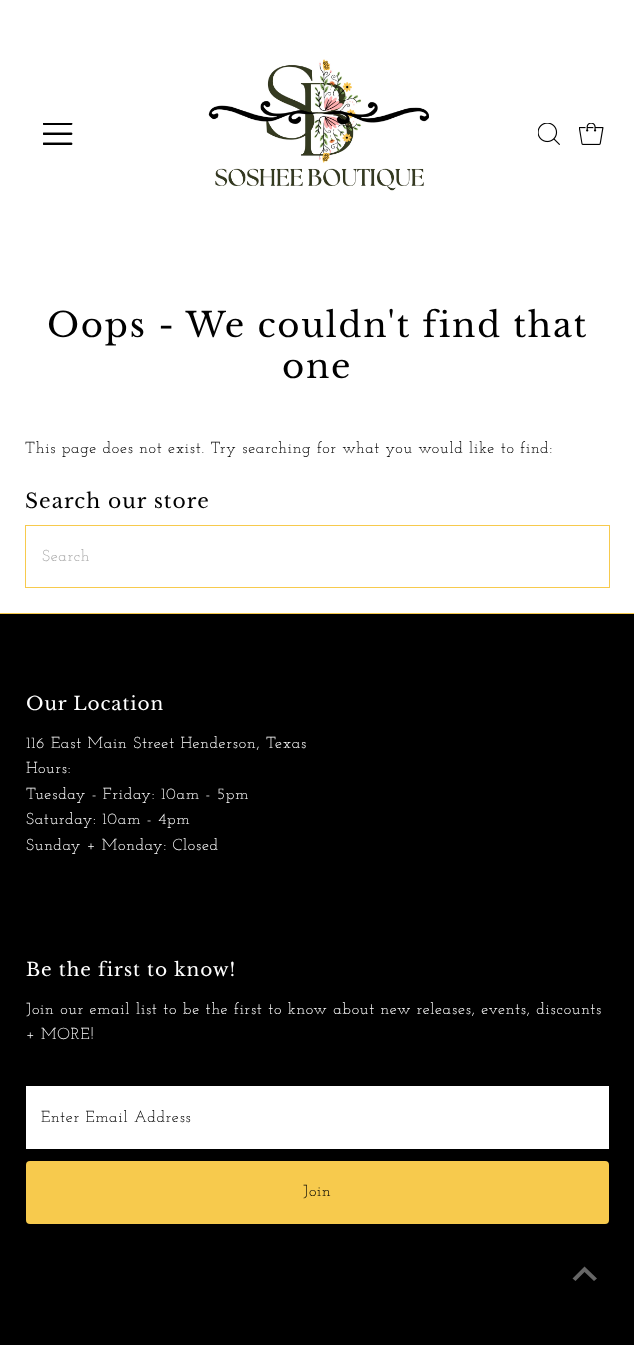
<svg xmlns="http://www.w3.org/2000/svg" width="634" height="1345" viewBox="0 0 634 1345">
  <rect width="100%" height="100%" fill="rgb(255,255,255)"/>
  <image x="43" y="123" width="30" height="22" href="pic1.png"/>
  <image x="208" y="59" width="221" height="132" href="pic2.png"/>
  <image x="538" y="123" width="22" height="22" href="pic3.png"/>
  <image x="579" y="123" width="25" height="22" href="pic4.png"/>
  <g font-family="Libre Baskerville" font-size="34" letter-spacing="1.7" fill="rgb(0,0,0)">
    <text x="47" y="337">Oops - We couldn't find that</text>
    <text x="282" y="378">one</text>
  </g>
  <text x="25" y="453" font-family="Josefin Slab" font-size="15.95" letter-spacing="0.8" fill="rgb(0,0,0)">This page does not exist. Try searching for what you would like to find:</text>
  <text x="25" y="508" font-family="Libre Baskerville" font-size="20.25" letter-spacing="1" fill="rgb(0,0,0)">Search our store</text>
  <rect x="25.5" y="525.5" width="584" height="62" fill="none" stroke="rgb(247,202,77)"/>
  <text x="42" y="561" font-family="Josefin Slab" font-size="15.95" letter-spacing="0.8" fill="rgb(170,170,170)">Search</text>
  <rect x="0" y="614" width="634" height="731" fill="rgb(0,0,0)"/>
  <rect x="0" y="613" width="634" height="1" fill="rgb(247,202,77)"/>
  <text x="26" y="710" font-family="Libre Baskerville" font-size="18.5" letter-spacing="0.9" fill="rgb(255,255,255)">Our Location</text>
  <g font-family="Josefin Slab" font-size="15.95" letter-spacing="0.8" fill="rgb(255,255,255)">
    <text>
      <tspan x="26" y="748">116 East Main Street Henderson, Texas</tspan>
      <tspan x="26" y="773">Hours:</tspan>
      <tspan x="26" y="799">Tuesday - Friday: 10am - 5pm</tspan>
      <tspan x="26" y="824">Saturday: 10am - 4pm</tspan>
      <tspan x="26" y="850">Sunday + Monday: Closed</tspan>
    </text>
  </g>
  <text x="26" y="976" font-family="Libre Baskerville" font-size="18.5" letter-spacing="0.9" fill="rgb(255,255,255)">Be the first to know!</text>
  <g font-family="Josefin Slab" font-size="15.95" letter-spacing="0.8" fill="rgb(255,255,255)">
    <text>
      <tspan x="26" y="1014">Join our email list to be the first to know about new releases, events, discounts</tspan>
      <tspan x="26" y="1039">+ MORE!</tspan>
    </text>
  </g>
  <rect x="26" y="1086" width="583" height="63" fill="rgb(255,255,255)"/>
  <text x="41" y="1122" font-family="Josefin Slab" font-size="15.95" letter-spacing="0.8" fill="rgb(0,0,0)">Enter Email Address</text>
  <rect x="26" y="1161" width="583" height="63" rx="4" fill="rgb(247,202,77)"/>
  <text x="303" y="1196" font-family="Josefin Slab" font-size="15.95" letter-spacing="0.8" fill="rgb(0,0,0)">Join</text>
  <path d="M584.5 1266.5L572.5 1278.5L575.5 1281L584.5 1272L594 1281L597 1278.5Z" fill="rgb(102,102,102)"/>
</svg>
